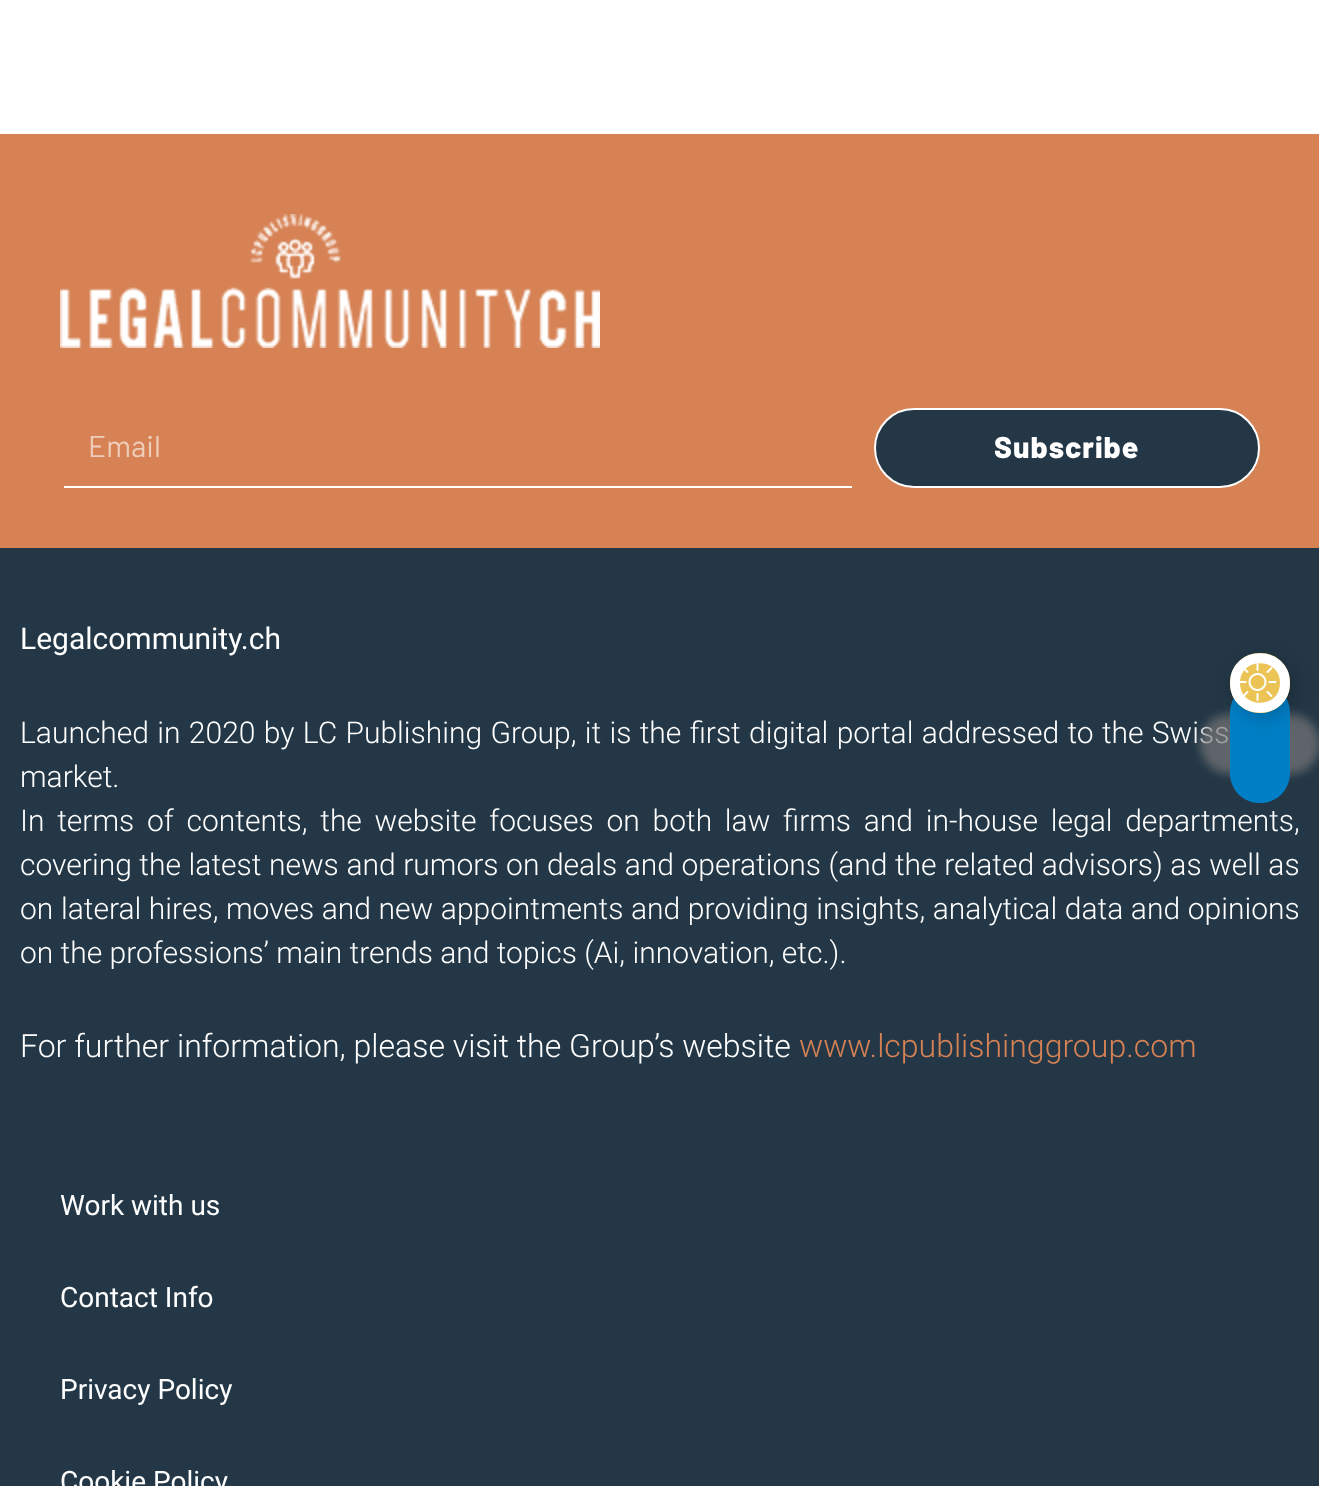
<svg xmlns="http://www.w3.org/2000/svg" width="1319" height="1486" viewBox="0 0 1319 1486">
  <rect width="100%" height="100%" fill="rgb(255,255,255)"/>
  <rect x="0" y="134" width="1319" height="414" fill="rgb(214,130,84)"/>
  <image x="60" y="214" width="540" height="134" href="pic1.png"/>
  <rect x="64" y="486" width="788" height="2" fill="rgb(255,255,255)"/>
  <text x="88" y="457" font-family="Barlow" font-size="30" fill="rgb(239,205,187)">Email</text>
  <rect x="875" y="409" width="384" height="78" rx="39" fill="rgb(35,55,70)" stroke="rgb(255,255,255)" stroke-width="2"/>
  <text x="994" y="458" font-family="Barlow" font-size="30" font-weight="800" letter-spacing="1" fill="rgb(255,255,255)">Subscribe</text>
  <rect x="0" y="548" width="1319" height="938" fill="rgb(35,55,70)"/>
  <text x="20" y="649" font-family="Roboto" font-size="30" fill="rgb(255,255,255)">Legalcommunity.ch</text>
  <g font-family="Roboto" font-size="30" font-weight="300" fill="rgb(255,255,255)">
    <text>
      <tspan x="20" y="743" word-spacing="1">Launched in 2020 by LC Publishing Group, it is the first digital portal addressed to the Swiss</tspan>
      <tspan x="20" y="787">market.</tspan>
      <tspan x="20" y="831" word-spacing="5.4">In terms of contents, the website focuses on both law firms and in-house legal departments,</tspan>
      <tspan x="20" y="875" word-spacing="0.25">covering the latest news and rumors on deals and operations (and the related advisors) as well as</tspan>
      <tspan x="20" y="919" word-spacing="0.3">on lateral hires, moves and new appointments and providing insights, analytical data and opinions</tspan>
      <tspan x="20" y="963">on the professions’ main trends and topics (Ai, innovation, etc.).</tspan>
    </text>
  </g>
  <text x="20" y="1057" font-family="Roboto" font-size="32" font-weight="300" fill="rgb(255,255,255)">For further information, please visit the Group’s website</text>
  <text x="799" y="1057" font-family="Roboto" font-size="32" font-weight="300" fill="rgb(214,130,84)">www.lcpublishinggroup.com</text>
  <g font-family="Roboto" font-size="28" fill="rgb(255,255,255)">
    <text x="60" y="1215">Work with us</text>
    <text x="60" y="1307">Contact Info</text>
    <text x="60" y="1399">Privacy Policy</text>
    <text x="60" y="1491">Cookie Policy</text>
  </g>
  <rect x="1200" y="714" width="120" height="60" rx="30" fill="rgba(119,119,119,0.7)" filter="blur(5px)"/>
  <path d="M1290 713V773C1290 790 1277 803 1260 803C1243 803 1230 790 1230 773V713C1230 696 1243 683 1260 683C1277 683 1290 696 1290 713Z" fill="rgb(0,127,198)"/>
  <rect x="1234" y="658" width="60" height="60" rx="30" fill="rgba(0,0,0,0.2)" filter="blur(10px)"/>
  <path d="M1290 683C1290 700 1277 713 1260 713C1243 713 1230 700 1230 683C1230 666 1243 653 1260 653C1277 653 1290 666 1290 683Z" fill="rgb(236,195,85)"/>
  <path d="M1285 683C1285 716 1235 716 1235 683C1235 650 1285 650 1285 683Z" fill="none" stroke="rgb(255,255,255)" stroke-width="10"/>
  <image x="1240" y="663" width="37" height="38" href="pic2.png"/>
</svg>
